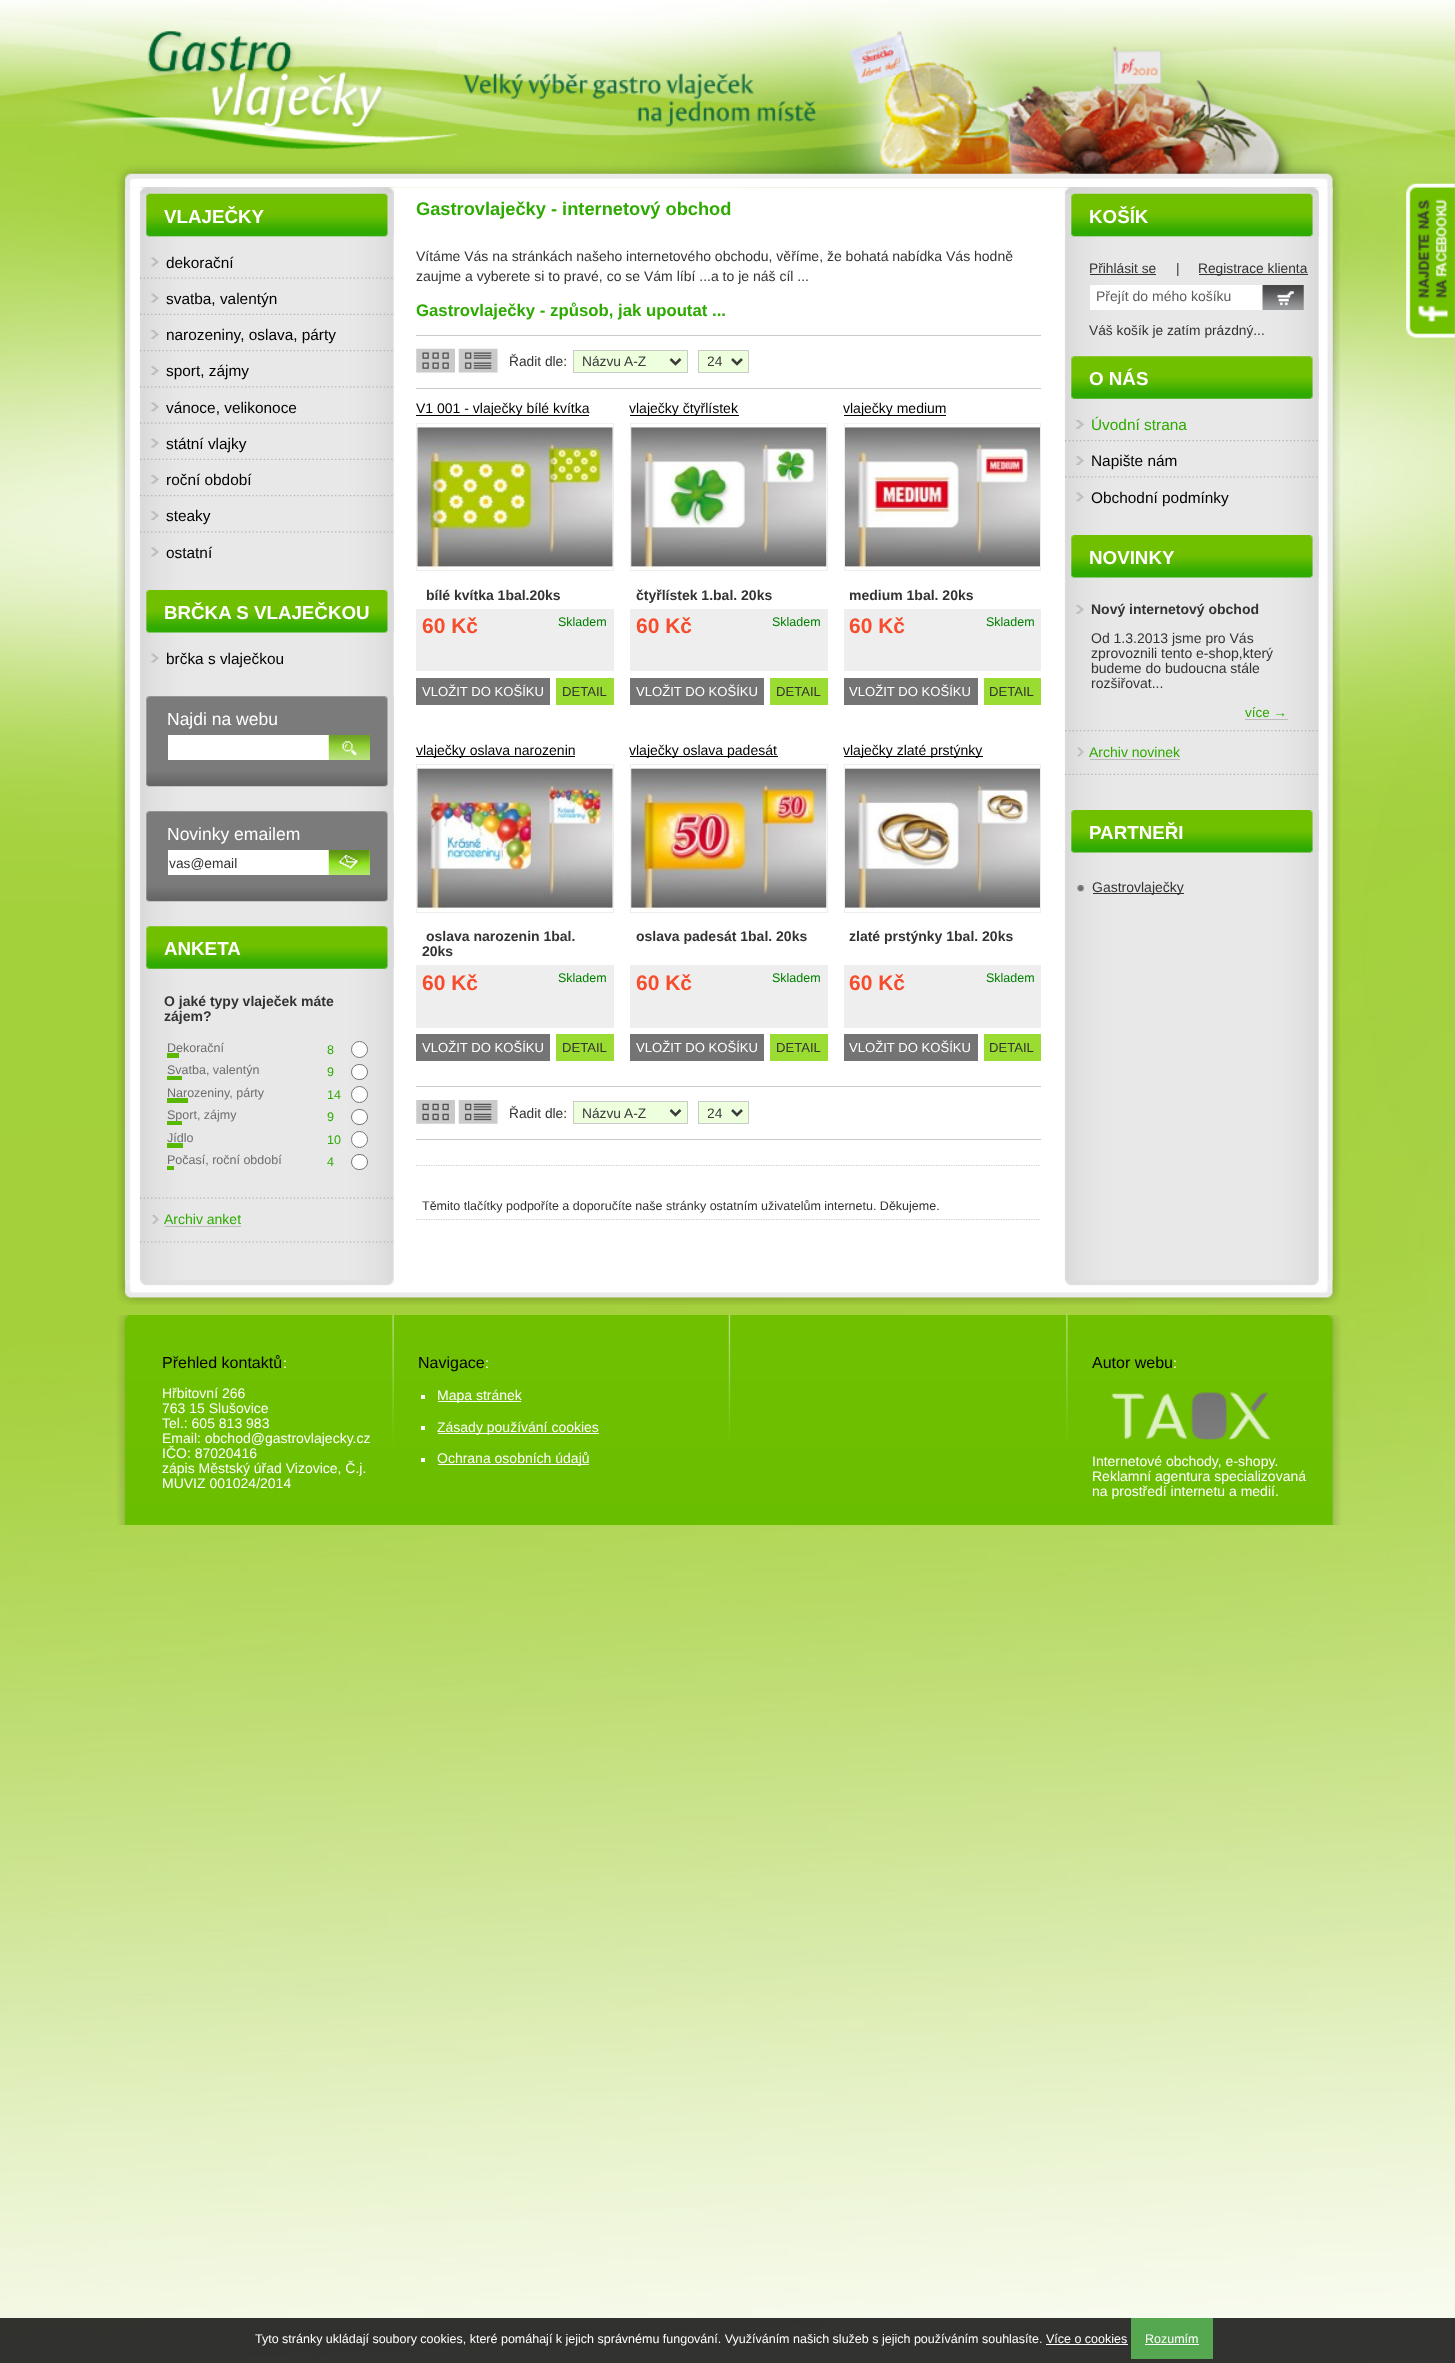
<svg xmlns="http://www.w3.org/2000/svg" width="1455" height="2363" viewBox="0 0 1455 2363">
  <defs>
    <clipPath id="clip1"><rect x="708" y="353" width="16" height="17"/></clipPath>
    <clipPath id="clip2"><rect x="708" y="1104" width="16" height="17"/></clipPath>
  </defs>
  <rect width="100%" height="100%" fill="rgb(255,255,255)"/>
  <image x="0" y="0" width="1455" height="2363" href="pic1.png"/>
  <image x="113" y="8" width="1231" height="180" href="pic2.png"/>
  <image x="147" y="31" width="237" height="100" href="pic3.png"/>
  <image x="117" y="187" width="1223" height="1093" href="pic4.png"/>
  <image x="125" y="187" width="1208" height="1093" href="pic5.png"/>
  <image x="125" y="187" width="269" height="7" href="pic6.png"/>
  <image x="146" y="193" width="248" height="44" href="pic7.png"/>
  <text x="164" y="223" font-family="Liberation Sans" font-size="18.75" font-weight="bold" fill="rgb(255,255,255)">VLAJEČKY</text>
  <image x="151" y="257" width="8" height="10" href="pic8.png"/>
  <text x="166" y="268" font-family="Liberation Sans" font-size="15.4" fill="rgb(0,0,0)">dekorační</text>
  <image x="140" y="277" width="253" height="2" href="pic9.png"/>
  <image x="151" y="293" width="8" height="10" href="pic10.png"/>
  <text x="166" y="304" font-family="Liberation Sans" font-size="15.4" fill="rgb(0,0,0)">svatba, valentýn</text>
  <image x="140" y="313" width="253" height="2" href="pic11.png"/>
  <image x="151" y="330" width="8" height="9" href="pic12.png"/>
  <text x="166" y="340" font-family="Liberation Sans" font-size="15.4" fill="rgb(0,0,0)">narozeniny, oslava, párty</text>
  <image x="140" y="350" width="253" height="2" href="pic13.png"/>
  <image x="151" y="366" width="8" height="9" href="pic14.png"/>
  <text x="166" y="376" font-family="Liberation Sans" font-size="15.4" fill="rgb(0,0,0)">sport, zájmy</text>
  <image x="140" y="386" width="253" height="2" href="pic15.png"/>
  <image x="151" y="402" width="8" height="10" href="pic8.png"/>
  <text x="166" y="413" font-family="Liberation Sans" font-size="15.4" fill="rgb(0,0,0)">vánoce, velikonoce</text>
  <image x="140" y="422" width="253" height="2" href="pic9.png"/>
  <image x="151" y="438" width="8" height="10" href="pic16.png"/>
  <text x="166" y="449" font-family="Liberation Sans" font-size="15.4" fill="rgb(0,0,0)">státní vlajky</text>
  <image x="140" y="458" width="253" height="2" href="pic11.png"/>
  <image x="151" y="475" width="8" height="9" href="pic12.png"/>
  <text x="166" y="485" font-family="Liberation Sans" font-size="15.4" fill="rgb(0,0,0)">roční období</text>
  <image x="140" y="495" width="253" height="2" href="pic13.png"/>
  <image x="151" y="511" width="8" height="9" href="pic14.png"/>
  <text x="166" y="521" font-family="Liberation Sans" font-size="15.4" fill="rgb(0,0,0)">steaky</text>
  <image x="140" y="531" width="253" height="2" href="pic15.png"/>
  <image x="151" y="547" width="8" height="10" href="pic8.png"/>
  <text x="166" y="558" font-family="Liberation Sans" font-size="15.4" fill="rgb(0,0,0)">ostatní</text>
  <image x="146" y="590" width="248" height="43" href="pic17.png"/>
  <text x="164" y="619" font-family="Liberation Sans" font-size="18.75" font-weight="bold" fill="rgb(255,255,255)">BRČKA S VLAJEČKOU</text>
  <image x="151" y="653" width="8" height="10" href="pic16.png"/>
  <text x="166" y="664" font-family="Liberation Sans" font-size="15.4" fill="rgb(0,0,0)">brčka s vlaječkou</text>
  <image x="146" y="696" width="248" height="91" href="pic18.png"/>
  <text x="167" y="725" font-family="Liberation Sans" font-size="17.5" fill="rgb(255,255,255)">Najdi na webu</text>
  <rect x="168" y="735" width="161" height="25" fill="rgb(255,255,255)"/>
  <image x="328" y="735" width="42" height="25" href="pic19.png"/>
  <image x="146" y="811" width="248" height="91" href="pic18.png"/>
  <text x="167" y="840" font-family="Liberation Sans" font-size="17.5" fill="rgb(255,255,255)">Novinky emailem</text>
  <rect x="168" y="850" width="161" height="25" fill="rgb(255,255,255)"/>
  <text x="169" y="868" font-family="Liberation Sans" font-size="13.75" fill="rgb(51,51,51)">vas@email</text>
  <image x="328" y="850" width="42" height="25" href="pic20.png"/>
  <image x="146" y="926" width="248" height="43" href="pic21.png"/>
  <text x="164" y="955" font-family="Liberation Sans" font-size="18.75" font-weight="bold" fill="rgb(255,255,255)">ANKETA</text>
  <image x="140" y="1197" width="253" height="2" href="pic9.png"/>
  <g font-family="Liberation Sans" font-size="14" font-weight="bold" fill="rgb(51,51,51)">
    <text>
      <tspan x="164" y="1006">O jaké typy vlaječek máte</tspan>
      <tspan x="164" y="1021">zájem?</tspan>
    </text>
  </g>
  <text x="167" y="1052" font-family="Liberation Sans" font-size="12.5" fill="rgb(109,110,112)">Dekorační</text>
  <rect x="167" y="1053" width="12" height="5" fill="rgb(89,184,1)"/>
  <text x="327" y="1054" font-family="Liberation Sans" font-size="12.5" fill="rgb(46,170,2)">8</text>
  <circle cx="359.5" cy="1049.5" r="8" fill="rgb(255,255,255)" stroke="rgb(118,118,118)"/>
  <text x="167" y="1074" font-family="Liberation Sans" font-size="12.5" fill="rgb(109,110,112)">Svatba, valentýn</text>
  <rect x="167" y="1076" width="15" height="4" fill="rgb(89,184,1)"/>
  <text x="327" y="1076" font-family="Liberation Sans" font-size="12.5" fill="rgb(46,170,2)">9</text>
  <rect x="351.5" y="1064.5" width="16" height="15" rx="7.5" fill="rgb(255,255,255)" stroke="rgb(118,118,118)"/>
  <text x="167" y="1097" font-family="Liberation Sans" font-size="12.5" fill="rgb(109,110,112)">Narozeniny, párty</text>
  <rect x="167" y="1098" width="21" height="5" fill="rgb(89,184,1)"/>
  <text x="327" y="1099" font-family="Liberation Sans" font-size="12.5" fill="rgb(46,170,2)">14</text>
  <circle cx="359.5" cy="1094.5" r="8" fill="rgb(255,255,255)" stroke="rgb(118,118,118)"/>
  <text x="167" y="1119" font-family="Liberation Sans" font-size="12.5" fill="rgb(109,110,112)">Sport, zájmy</text>
  <rect x="167" y="1121" width="15" height="4" fill="rgb(89,184,1)"/>
  <text x="327" y="1121" font-family="Liberation Sans" font-size="12.5" fill="rgb(46,170,2)">9</text>
  <rect x="351.5" y="1109.5" width="16" height="15" rx="7.5" fill="rgb(255,255,255)" stroke="rgb(118,118,118)"/>
  <text x="167" y="1142" font-family="Liberation Sans" font-size="12.5" fill="rgb(109,110,112)">Jídlo</text>
  <rect x="167" y="1143" width="16" height="5" fill="rgb(89,184,1)"/>
  <text x="327" y="1144" font-family="Liberation Sans" font-size="12.5" fill="rgb(46,170,2)">10</text>
  <circle cx="359.5" cy="1139.5" r="8" fill="rgb(255,255,255)" stroke="rgb(118,118,118)"/>
  <text x="167" y="1164" font-family="Liberation Sans" font-size="12.5" fill="rgb(109,110,112)">Počasí, roční období</text>
  <rect x="167" y="1166" width="7" height="4" fill="rgb(89,184,1)"/>
  <text x="327" y="1166" font-family="Liberation Sans" font-size="12.5" fill="rgb(46,170,2)">4</text>
  <rect x="351.5" y="1154.5" width="16" height="15" rx="7.5" fill="rgb(255,255,255)" stroke="rgb(118,118,118)"/>
  <image x="140" y="1215" width="253" height="28" href="pic22.png"/>
  <text x="164" y="1224" font-family="Liberation Sans" font-size="14" fill="rgb(46,170,2)">Archiv anket</text>
  <rect x="165" y="1226" width="76" height="1" fill="rgb(189,188,186)"/>
  <text x="416" y="215" font-family="Liberation Sans" font-size="18.25" font-weight="bold" fill="rgb(46,170,2)">Gastrovlaječky - internetový obchod</text>
  <g font-family="Liberation Sans" font-size="14" fill="rgb(51,51,51)">
    <text>
      <tspan x="416" y="261">Vítáme Vás na stránkách našeho internetového obchodu, věříme, že bohatá nabídka Vás hodně</tspan>
      <tspan x="416" y="281">zaujme a vyberete si to pravé, co se Vám líbí ...a to je náš cíl ...</tspan>
    </text>
  </g>
  <text x="416" y="316" font-family="Liberation Sans" font-size="16.75" font-weight="bold" fill="rgb(46,170,2)">Gastrovlaječky - způsob, jak upoutat ...</text>
  <rect x="416" y="335" width="625" height="1" fill="rgb(202,202,202)"/>
  <rect x="416" y="388" width="625" height="1" fill="rgb(202,202,202)"/>
  <image x="416" y="348" width="39" height="25" href="pic23.png"/>
  <image x="458" y="348" width="40" height="25" href="pic24.png"/>
  <text x="509" y="366" font-family="Liberation Sans" font-size="13.75" fill="rgb(51,51,51)">Řadit dle:</text>
  <rect x="573.5" y="350.5" width="114" height="22" fill="rgb(237,255,221)" stroke="rgb(202,202,202)"/>
  <path d="M670.5 359L675.5 364L680.5 359" fill="none" stroke="rgb(59,59,59)" stroke-width="2.5"/>
  <text x="582" y="366" font-family="Liberation Sans" font-size="13.75" fill="rgb(59,59,59)">Názvu A-Z</text>
  <rect x="698.5" y="350.5" width="50" height="22" fill="rgb(237,255,221)" stroke="rgb(202,202,202)"/>
  <path d="M732 359L737 364L742 359" fill="none" stroke="rgb(59,59,59)" stroke-width="2.5"/>
  <g clip-path="url(#clip1)">
    <text x="707" y="366" font-family="Liberation Sans" font-size="13.75" fill="rgb(59,59,59)">24</text>
  </g>
  <rect x="416" y="415" width="173" height="1" fill="rgb(0,0,0)"/>
  <text x="416" y="413" font-family="Liberation Sans" font-size="14" fill="rgb(0,0,0)">V1 001 - vlaječky bílé kvítka</text>
  <rect x="630" y="415" width="109" height="1" fill="rgb(0,0,0)"/>
  <text x="629" y="413" font-family="Liberation Sans" font-size="14" fill="rgb(0,0,0)">vlaječky čtyřlístek</text>
  <rect x="844" y="415" width="102" height="1" fill="rgb(0,0,0)"/>
  <text x="843" y="413" font-family="Liberation Sans" font-size="14" fill="rgb(0,0,0)">vlaječky medium</text>
  <rect x="416.5" y="423.5" width="197" height="147" fill="none" stroke="rgb(238,238,238)"/>
  <image x="417" y="423" width="196" height="147" href="pic25.png"/>
  <rect x="630.5" y="423.5" width="197" height="147" fill="none" stroke="rgb(238,238,238)"/>
  <image x="631" y="423" width="196" height="147" href="pic26.png"/>
  <rect x="844.5" y="423.5" width="196" height="147" fill="none" stroke="rgb(238,238,238)"/>
  <image x="845" y="423" width="195" height="147" href="pic27.png"/>
  <g font-family="Liberation Sans" font-size="14" font-weight="bold" fill="rgb(51,51,51)">
    <text x="426" y="600">bílé kvítka 1bal.20ks</text>
    <text x="636" y="600">čtyřlístek 1.bal. 20ks</text>
    <text x="849" y="600">medium 1bal. 20ks</text>
  </g>
  <rect x="416" y="609" width="198" height="62" fill="rgb(238,238,238)"/>
  <text x="422" y="633" font-family="Liberation Sans" font-size="21" font-weight="bold" fill="rgb(246,77,45)">60 Kč</text>
  <text x="558" y="626" font-family="Liberation Sans" font-size="12.5" fill="rgb(0,128,0)">Skladem</text>
  <rect x="416" y="678" width="134" height="27" fill="rgb(116,116,116)"/>
  <text x="422" y="696" font-family="Liberation Sans" font-size="13.1" fill="rgb(255,255,255)">VLOŽIT DO KOŠÍKU</text>
  <rect x="556" y="678" width="58" height="27" fill="rgb(154,220,50)"/>
  <text x="562" y="696" font-family="Liberation Sans" font-size="13.1" fill="rgb(51,51,51)">DETAIL</text>
  <rect x="630" y="609" width="198" height="62" fill="rgb(238,238,238)"/>
  <text x="636" y="633" font-family="Liberation Sans" font-size="21" font-weight="bold" fill="rgb(246,77,45)">60 Kč</text>
  <text x="772" y="626" font-family="Liberation Sans" font-size="12.5" fill="rgb(0,128,0)">Skladem</text>
  <rect x="630" y="678" width="134" height="27" fill="rgb(116,116,116)"/>
  <text x="636" y="696" font-family="Liberation Sans" font-size="13.1" fill="rgb(255,255,255)">VLOŽIT DO KOŠÍKU</text>
  <rect x="770" y="678" width="58" height="27" fill="rgb(154,220,50)"/>
  <text x="776" y="696" font-family="Liberation Sans" font-size="13.1" fill="rgb(51,51,51)">DETAIL</text>
  <rect x="844" y="609" width="197" height="62" fill="rgb(238,238,238)"/>
  <text x="849" y="633" font-family="Liberation Sans" font-size="21" font-weight="bold" fill="rgb(246,77,45)">60 Kč</text>
  <text x="986" y="626" font-family="Liberation Sans" font-size="12.5" fill="rgb(0,128,0)">Skladem</text>
  <rect x="844" y="678" width="134" height="27" fill="rgb(116,116,116)"/>
  <text x="849" y="696" font-family="Liberation Sans" font-size="13.1" fill="rgb(255,255,255)">VLOŽIT DO KOŠÍKU</text>
  <rect x="984" y="678" width="57" height="27" fill="rgb(154,220,50)"/>
  <text x="989" y="696" font-family="Liberation Sans" font-size="13.1" fill="rgb(51,51,51)">DETAIL</text>
  <rect x="416" y="756" width="159" height="1" fill="rgb(0,0,0)"/>
  <text x="416" y="755" font-family="Liberation Sans" font-size="14" fill="rgb(0,0,0)">vlaječky oslava narozenin</text>
  <rect x="630" y="756" width="148" height="1" fill="rgb(0,0,0)"/>
  <text x="629" y="755" font-family="Liberation Sans" font-size="14" fill="rgb(0,0,0)">vlaječky oslava padesát</text>
  <rect x="844" y="756" width="139" height="1" fill="rgb(0,0,0)"/>
  <text x="843" y="755" font-family="Liberation Sans" font-size="14" fill="rgb(0,0,0)">vlaječky zlaté prstýnky</text>
  <rect x="416.5" y="764.5" width="197" height="148" fill="none" stroke="rgb(238,238,238)"/>
  <image x="417" y="768" width="196" height="144" href="pic28.png"/>
  <rect x="630.5" y="764.5" width="197" height="148" fill="none" stroke="rgb(238,238,238)"/>
  <image x="631" y="768" width="196" height="143" href="pic29.png"/>
  <rect x="844.5" y="764.5" width="196" height="148" fill="none" stroke="rgb(238,238,238)"/>
  <image x="845" y="768" width="195" height="143" href="pic30.png"/>
  <g font-family="Liberation Sans" font-size="14" font-weight="bold" fill="rgb(51,51,51)">
    <text x="426" y="941">oslava narozenin 1bal.</text>
    <text x="422" y="956">20ks</text>
    <text x="636" y="941">oslava padesát 1bal. 20ks</text>
    <text x="849" y="941">zlaté prstýnky 1bal. 20ks</text>
  </g>
  <rect x="416" y="965" width="198" height="63" fill="rgb(238,238,238)"/>
  <text x="422" y="990" font-family="Liberation Sans" font-size="21" font-weight="bold" fill="rgb(246,77,45)">60 Kč</text>
  <text x="558" y="982" font-family="Liberation Sans" font-size="12.5" fill="rgb(0,128,0)">Skladem</text>
  <rect x="416" y="1034" width="134" height="27" fill="rgb(116,116,116)"/>
  <text x="422" y="1052" font-family="Liberation Sans" font-size="13.1" fill="rgb(255,255,255)">VLOŽIT DO KOŠÍKU</text>
  <rect x="556" y="1034" width="58" height="27" fill="rgb(154,220,50)"/>
  <text x="562" y="1052" font-family="Liberation Sans" font-size="13.1" fill="rgb(51,51,51)">DETAIL</text>
  <rect x="630" y="965" width="198" height="63" fill="rgb(238,238,238)"/>
  <text x="636" y="990" font-family="Liberation Sans" font-size="21" font-weight="bold" fill="rgb(246,77,45)">60 Kč</text>
  <text x="772" y="982" font-family="Liberation Sans" font-size="12.5" fill="rgb(0,128,0)">Skladem</text>
  <rect x="630" y="1034" width="134" height="27" fill="rgb(116,116,116)"/>
  <text x="636" y="1052" font-family="Liberation Sans" font-size="13.1" fill="rgb(255,255,255)">VLOŽIT DO KOŠÍKU</text>
  <rect x="770" y="1034" width="58" height="27" fill="rgb(154,220,50)"/>
  <text x="776" y="1052" font-family="Liberation Sans" font-size="13.1" fill="rgb(51,51,51)">DETAIL</text>
  <rect x="844" y="965" width="197" height="63" fill="rgb(238,238,238)"/>
  <text x="849" y="990" font-family="Liberation Sans" font-size="21" font-weight="bold" fill="rgb(246,77,45)">60 Kč</text>
  <text x="986" y="982" font-family="Liberation Sans" font-size="12.5" fill="rgb(0,128,0)">Skladem</text>
  <rect x="844" y="1034" width="134" height="27" fill="rgb(116,116,116)"/>
  <text x="849" y="1052" font-family="Liberation Sans" font-size="13.1" fill="rgb(255,255,255)">VLOŽIT DO KOŠÍKU</text>
  <rect x="984" y="1034" width="57" height="27" fill="rgb(154,220,50)"/>
  <text x="989" y="1052" font-family="Liberation Sans" font-size="13.1" fill="rgb(51,51,51)">DETAIL</text>
  <rect x="416" y="1086" width="625" height="1" fill="rgb(202,202,202)"/>
  <rect x="416" y="1139" width="625" height="1" fill="rgb(202,202,202)"/>
  <image x="416" y="1100" width="39" height="24" href="pic31.png"/>
  <image x="458" y="1100" width="40" height="24" href="pic32.png"/>
  <text x="509" y="1118" font-family="Liberation Sans" font-size="13.75" fill="rgb(51,51,51)">Řadit dle:</text>
  <rect x="573.5" y="1101.5" width="114" height="22" fill="rgb(237,255,221)" stroke="rgb(202,202,202)"/>
  <path d="M670.5 1110L675.5 1115L680.5 1110" fill="none" stroke="rgb(59,59,59)" stroke-width="2.5"/>
  <text x="582" y="1118" font-family="Liberation Sans" font-size="13.75" fill="rgb(59,59,59)">Názvu A-Z</text>
  <rect x="698.5" y="1101.5" width="50" height="22" fill="rgb(237,255,221)" stroke="rgb(202,202,202)"/>
  <path d="M732 1110L737 1115L742 1110" fill="none" stroke="rgb(59,59,59)" stroke-width="2.5"/>
  <g clip-path="url(#clip2)">
    <text x="707" y="1118" font-family="Liberation Sans" font-size="13.75" fill="rgb(59,59,59)">24</text>
  </g>
  <path d="M416 1165.5H1041" fill="none" stroke="rgb(204,204,204)" stroke-width="1.2" stroke-dasharray="1.25 1.25"/>
  <path d="M416 1219.5H1041" fill="none" stroke="rgb(204,204,204)" stroke-width="1.2" stroke-dasharray="1.25 1.25"/>
  <text x="422" y="1210" font-family="Liberation Sans" font-size="12.5" fill="rgb(51,51,51)">Těmito tlačítky podpoříte a doporučíte naše stránky ostatním uživatelům internetu. Děkujeme.</text>
  <image x="1065" y="187" width="268" height="7" href="pic33.png"/>
  <image x="1071" y="193" width="248" height="44" href="pic34.png"/>
  <text x="1089" y="223" font-family="Liberation Sans" font-size="18.75" font-weight="bold" fill="rgb(255,255,255)">KOŠÍK</text>
  <text x="1089" y="273" font-family="Liberation Sans" font-size="13.75" fill="rgb(51,51,51)">Přihlásit se</text>
  <rect x="1090" y="274" width="66" height="1" fill="rgb(51,51,51)"/>
  <text x="1176" y="273" font-family="Liberation Sans" font-size="13.75" fill="rgb(51,51,51)">|</text>
  <rect x="1199" y="274" width="109" height="1" fill="rgb(51,51,51)"/>
  <text x="1198" y="273" font-family="Liberation Sans" font-size="13.75" fill="rgb(51,51,51)">Registrace klienta</text>
  <image x="1090" y="285" width="214" height="25" href="pic35.png"/>
  <text x="1096" y="301" font-family="Liberation Sans" font-size="14" fill="rgb(93,93,93)">Přejít do mého košíku</text>
  <text x="1089" y="335" font-family="Liberation Sans" font-size="13.75" fill="rgb(51,51,51)">Váš košík je zatím prázdný...</text>
  <image x="1071" y="356" width="248" height="43" href="pic36.png"/>
  <text x="1089" y="385" font-family="Liberation Sans" font-size="18.75" font-weight="bold" fill="rgb(255,255,255)">O NÁS</text>
  <image x="1076" y="420" width="8" height="9" href="pic37.png"/>
  <text x="1091" y="430" font-family="Liberation Sans" font-size="15.4" fill="rgb(46,170,2)">Úvodní strana</text>
  <image x="1065" y="440" width="253" height="2" href="pic38.png"/>
  <image x="1076" y="456" width="8" height="9" href="pic39.png"/>
  <text x="1091" y="466" font-family="Liberation Sans" font-size="15.4" fill="rgb(0,0,0)">Napište nám</text>
  <image x="1065" y="476" width="253" height="2" href="pic40.png"/>
  <image x="1076" y="492" width="8" height="10" href="pic41.png"/>
  <text x="1091" y="503" font-family="Liberation Sans" font-size="15.4" fill="rgb(0,0,0)">Obchodní podmínky</text>
  <image x="1071" y="535" width="248" height="43" href="pic42.png"/>
  <text x="1089" y="564" font-family="Liberation Sans" font-size="18.75" font-weight="bold" fill="rgb(255,255,255)">NOVINKY</text>
  <image x="1065" y="730" width="253" height="2" href="pic38.png"/>
  <image x="1076" y="605" width="8" height="9" href="pic43.png"/>
  <text x="1091" y="614" font-family="Liberation Sans" font-size="14" font-weight="bold" fill="rgb(51,51,51)">Nový internetový obchod</text>
  <g font-family="Liberation Sans" font-size="14" fill="rgb(51,51,51)">
    <text>
      <tspan x="1091" y="643">Od 1.3.2013 jsme pro Vás</tspan>
      <tspan x="1091" y="658">zprovoznili tento e-shop,který</tspan>
      <tspan x="1091" y="673">budeme do budoucna stále</tspan>
      <tspan x="1091" y="688">rozšiřovat...</tspan>
    </text>
  </g>
  <text x="1245" y="717" font-family="Liberation Sans" font-size="13.5" fill="rgb(46,170,2)">více →</text>
  <rect x="1245" y="719" width="43" height="1" fill="rgb(189,188,186)"/>
  <image x="1065" y="747" width="253" height="28" href="pic44.png"/>
  <text x="1089" y="757" font-family="Liberation Sans" font-size="14" fill="rgb(46,170,2)">Archiv novinek</text>
  <rect x="1090" y="759" width="90" height="1" fill="rgb(189,188,186)"/>
  <image x="1071" y="810" width="248" height="43" href="pic42.png"/>
  <text x="1089" y="839" font-family="Liberation Sans" font-size="18.75" font-weight="bold" fill="rgb(255,255,255)">PARTNEŘI</text>
  <image x="1077" y="885" width="7" height="7" href="pic45.png"/>
  <rect x="1093" y="893" width="91" height="1" fill="rgb(51,51,51)"/>
  <text x="1092" y="892" font-family="Liberation Sans" font-size="14" fill="rgb(51,51,51)">Gastrovlaječky</text>
  <image x="117" y="1280" width="1223" height="25" href="pic46.png"/>
  <image x="1406" y="183" width="49" height="155" href="pic47.png"/>
  <image x="117" y="1315" width="1224" height="210" href="pic48.png"/>
  <text x="162" y="1368" font-family="Liberation Sans" font-size="16" fill="rgb(0,0,0)">Přehled kontaktů</text>
  <g font-family="Liberation Sans" font-size="14" fill="rgb(255,255,255)">
    <text x="283" y="1368">:</text>
    <text>
      <tspan x="162" y="1398">Hřbitovní 266</tspan>
      <tspan x="162" y="1413">763 15 Slušovice</tspan>
      <tspan x="162" y="1428">Tel.: 605 813 983</tspan>
      <tspan x="162" y="1443">Email: obchod@gastrovlajecky.cz</tspan>
      <tspan x="162" y="1458">IČO: 87020416</tspan>
      <tspan x="162" y="1473">zápis Městský úřad Vizovice, Č.j.</tspan>
      <tspan x="162" y="1488">MUVIZ 001024/2014</tspan>
    </text>
  </g>
  <text x="418" y="1368" font-family="Liberation Sans" font-size="16" fill="rgb(0,0,0)">Navigace</text>
  <text x="485" y="1368" font-family="Liberation Sans" font-size="14" fill="rgb(255,255,255)">:</text>
  <rect x="421" y="1395" width="4" height="4" fill="rgb(255,255,255)"/>
  <rect x="438" y="1401" width="83" height="1" fill="rgb(255,255,255)"/>
  <text x="437" y="1400" font-family="Liberation Sans" font-size="14" fill="rgb(255,255,255)">Mapa stránek</text>
  <rect x="421" y="1426" width="4" height="4" fill="rgb(255,255,255)"/>
  <rect x="438" y="1433" width="161" height="1" fill="rgb(255,255,255)"/>
  <text x="437" y="1432" font-family="Liberation Sans" font-size="14" fill="rgb(255,255,255)">Zásady používání cookies</text>
  <rect x="421" y="1458" width="4" height="4" fill="rgb(255,255,255)"/>
  <rect x="438" y="1464" width="151" height="1" fill="rgb(255,255,255)"/>
  <text x="437" y="1463" font-family="Liberation Sans" font-size="14" fill="rgb(255,255,255)">Ochrana osobních údajů</text>
  <text x="1092" y="1368" font-family="Liberation Sans" font-size="16" fill="rgb(0,0,0)">Autor webu</text>
  <text x="1173" y="1368" font-family="Liberation Sans" font-size="14" fill="rgb(255,255,255)">:</text>
  <image x="1111" y="1392" width="160" height="48" href="pic49.png"/>
  <g font-family="Liberation Sans" font-size="14" fill="rgb(255,255,255)">
    <text>
      <tspan x="1092" y="1466">Internetové obchody, e-shopy.</tspan>
      <tspan x="1092" y="1481">Reklamní agentura specializovaná</tspan>
      <tspan x="1092" y="1496">na prostředí internetu a medií.</tspan>
    </text>
  </g>
  <rect x="0" y="2318" width="1455" height="45" fill="rgba(0,0,0,0.8)"/>
  <text x="255" y="2343" font-family="Liberation Sans" font-size="12.5" fill="rgb(255,255,255)">Tyto stránky ukládají soubory cookies, které pomáhají k jejich správnému fungování. Využíváním našich služeb s jejich používáním souhlasíte. Více o cookies</text>
  <rect x="1131" y="2318" width="82" height="41" fill="rgb(85,167,80)"/>
  <text x="1145" y="2343" font-family="Liberation Sans" font-size="12.5" fill="rgb(255,255,255)">Rozumím</text>
  <rect x="1145" y="2344" width="54" height="1" fill="rgb(255,255,255)"/>
  <rect x="1046" y="2344" width="82" height="1" fill="rgb(255,255,255)"/>
</svg>
